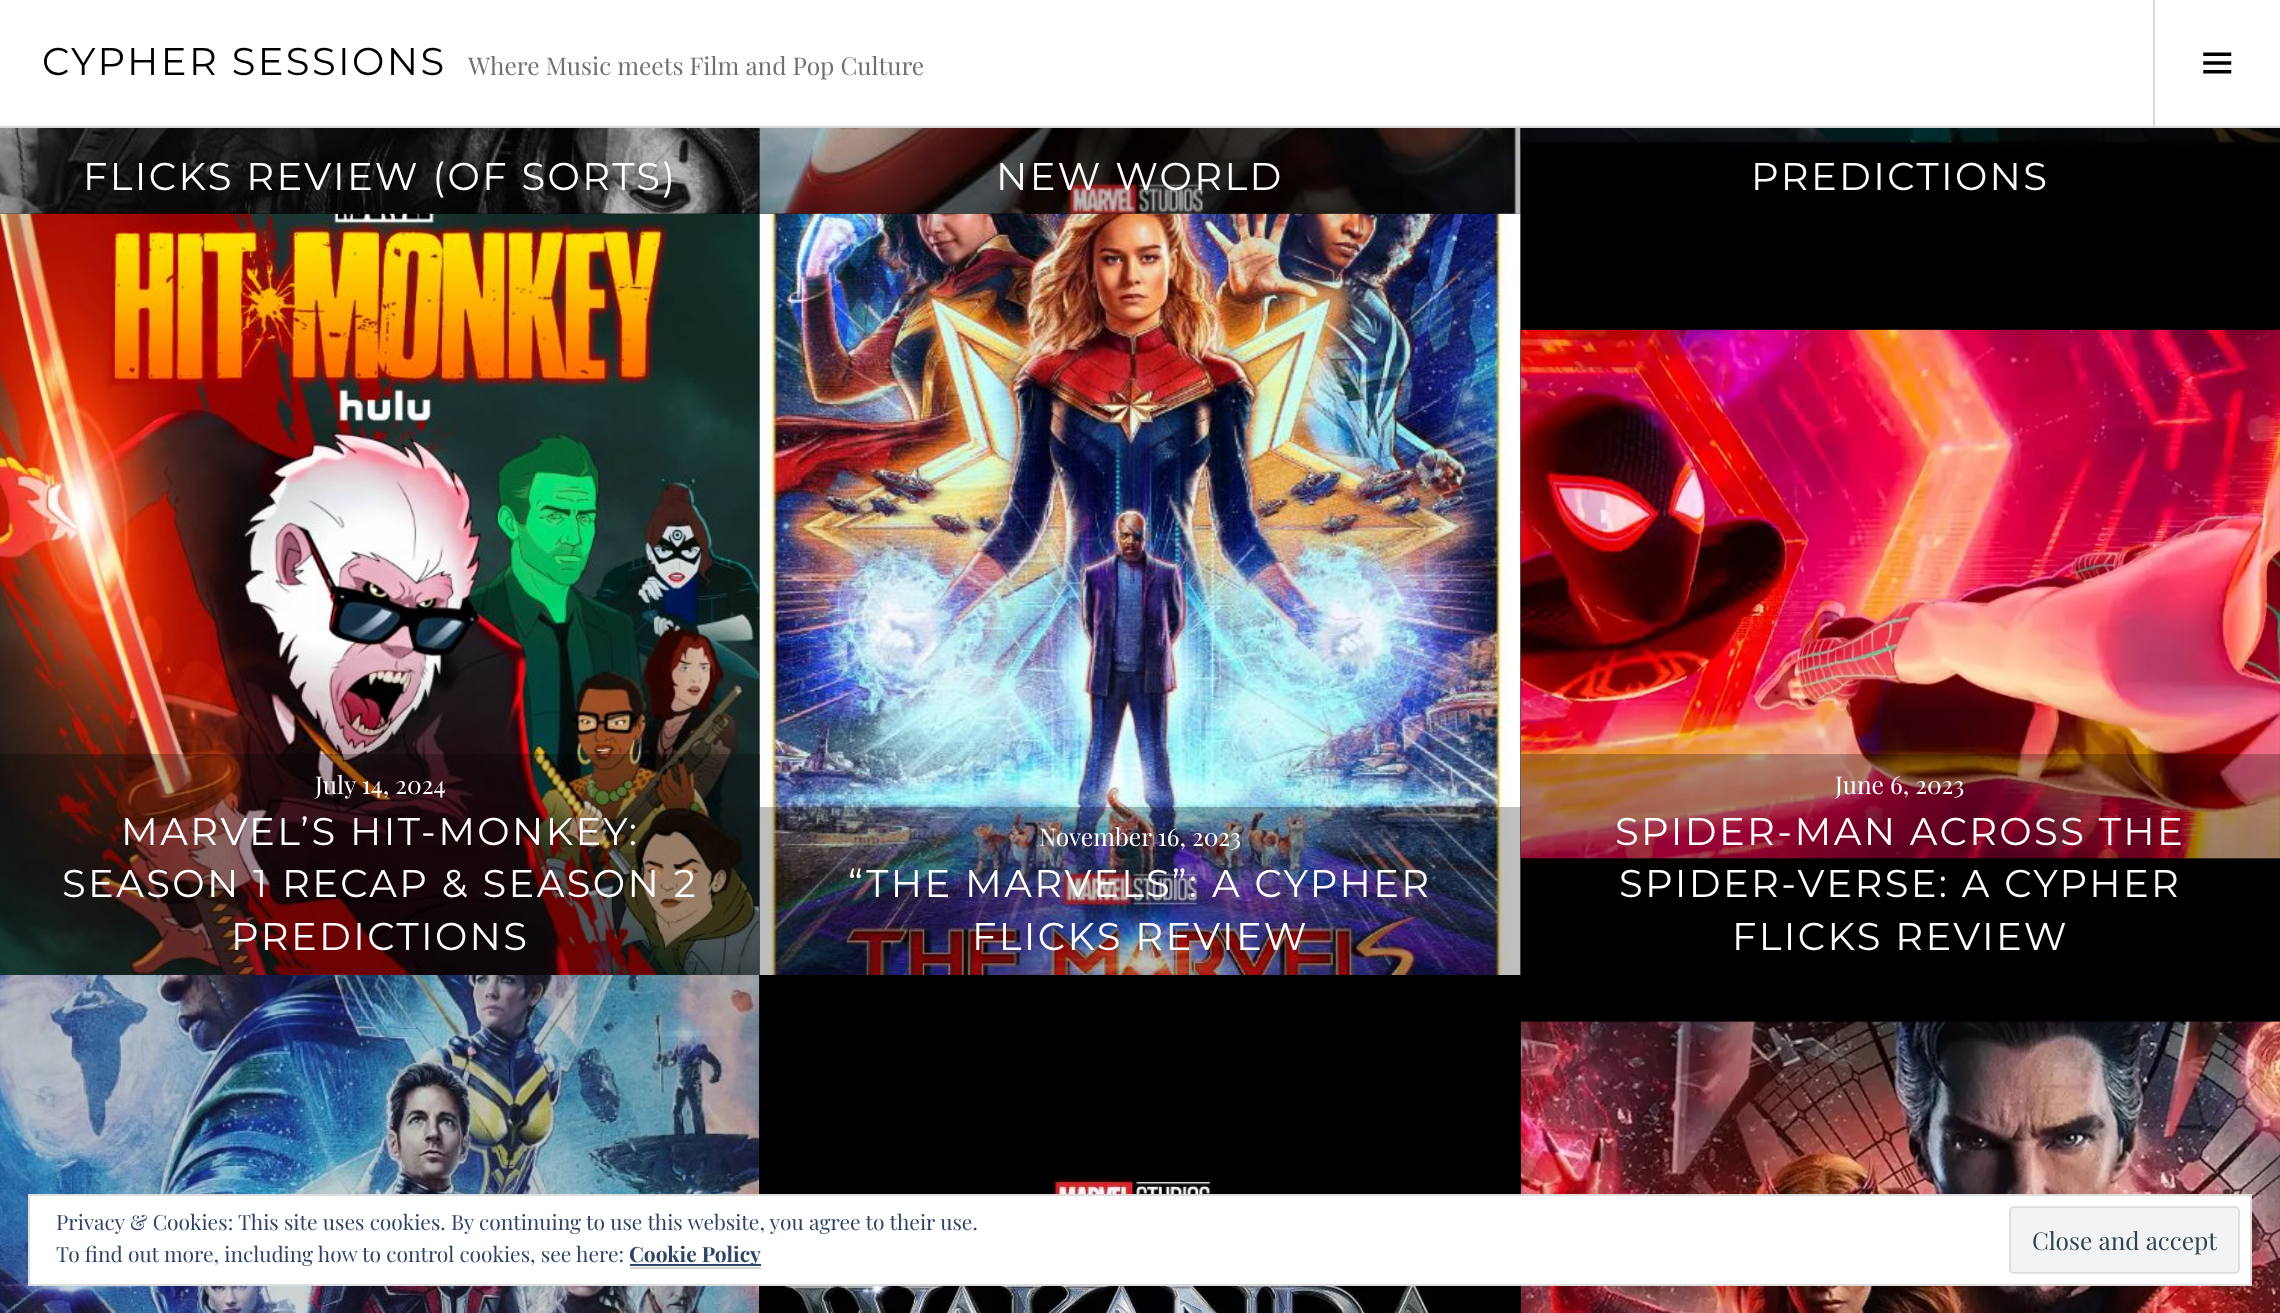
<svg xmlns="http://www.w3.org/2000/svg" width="2280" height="1313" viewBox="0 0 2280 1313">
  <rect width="100%" height="100%" fill="rgb(0,0,0)"/>
  <rect x="0" y="0" width="2280" height="126" fill="rgb(255,255,255)"/>
  <rect x="0" y="126" width="2280" height="2" fill="rgb(216,216,216)"/>
  <text x="42" y="75" font-family="Montserrat" font-size="38.5" letter-spacing="2.4" fill="rgb(0,0,0)">CYPHER SESSIONS</text>
  <text x="468" y="75" font-family="Playfair Display" font-size="24.5" fill="rgb(112,112,112)">Where Music meets Film and Pop Culture</text>
  <rect x="2153" y="0" width="2" height="126" fill="rgb(216,216,216)"/>
  <image x="2203" y="52" width="29" height="22" href="pic1.png"/>
  <image x="0" y="128" width="760" height="86" href="pic2.png"/>
  <image x="759" y="128" width="762" height="86" href="pic3.png"/>
  <image x="0" y="213" width="760" height="762" href="pic5.png"/>
  <image x="759" y="213" width="762" height="762" href="pic6.png"/>
  <rect x="0" y="128" width="760" height="86" fill="rgba(0,0,0,0.25)"/>
  <text x="83" y="190" font-family="Montserrat" font-size="38.5" letter-spacing="2.4" fill="rgb(255,255,255)">FLICKS REVIEW (OF SORTS)</text>
  <image x="1520" y="128" width="760" height="21" href="pic4.png"/>
  <rect x="760" y="128" width="761" height="86" fill="rgba(0,0,0,0.25)"/>
  <g font-family="Montserrat" font-size="38.5" letter-spacing="2.4" fill="rgb(255,255,255)">
    <text x="996" y="190">NEW WORLD</text>
    <text x="1751" y="190">PREDICTIONS</text>
  </g>
  <rect x="0" y="754" width="760" height="221" fill="rgba(0,0,0,0.25)"/>
  <text x="315" y="794" font-family="Playfair Display" font-size="24.5" fill="rgb(255,255,255)">July 14, 2024</text>
  <g font-family="Montserrat" font-size="38.5" letter-spacing="2.4" fill="rgb(255,255,255)">
    <text x="121" y="845">MARVEL’S HIT-MONKEY:</text>
    <text x="62" y="897">SEASON 1 RECAP &amp; SEASON 2</text>
    <text x="231" y="950">PREDICTIONS</text>
  </g>
  <image x="1520" y="329" width="760" height="530" href="pic7.png"/>
  <rect x="760" y="807" width="761" height="168" fill="rgba(0,0,0,0.25)"/>
  <text x="1039" y="846" font-family="Playfair Display" font-size="24.5" fill="rgb(255,255,255)">November 16, 2023</text>
  <g font-family="Montserrat" font-size="38.5" letter-spacing="2.4" fill="rgb(255,255,255)">
    <text x="848" y="897">“THE MARVELS”: A CYPHER</text>
    <text x="972" y="950">FLICKS REVIEW</text>
  </g>
  <rect x="1521" y="754" width="759" height="105" fill="rgba(0,0,0,0.25)"/>
  <text x="1835" y="794" font-family="Playfair Display" font-size="24.5" fill="rgb(255,255,255)">June 6, 2023</text>
  <g font-family="Montserrat" font-size="38.5" letter-spacing="2.4" fill="rgb(255,255,255)">
    <text x="1615" y="845">SPIDER-MAN ACROSS THE</text>
    <text x="1619" y="897">SPIDER-VERSE: A CYPHER</text>
    <text x="1732" y="950">FLICKS REVIEW</text>
  </g>
  <image x="0" y="975" width="760" height="338" href="pic8.png"/>
  <image x="759" y="1048" width="674" height="265" href="pic9.png"/>
  <image x="1520" y="1021" width="760" height="292" href="pic10.png"/>
  <rect x="29" y="1195" width="2222" height="90" fill="rgb(255,255,255)" stroke="rgb(222,222,222)" stroke-width="2"/>
  <g font-family="Playfair Display" font-size="21" fill="rgb(46,68,103)">
    <text>
      <tspan x="56" y="1230">Privacy &amp; Cookies: This site uses cookies. By continuing to use this website, you agree to their use.</tspan>
      <tspan x="56" y="1262">To find out more, including how to control cookies, see here:</tspan>
    </text>
  </g>
  <rect x="630" y="1264" width="131" height="2" fill="rgb(46,68,103)"/>
  <text x="629" y="1262" font-family="Playfair Display" font-size="21" font-weight="bold" fill="rgb(46,68,103)">Cookie Policy</text>
  <rect x="630" y="1267" width="131" height="2" fill="rgb(216,216,216)"/>
  <rect x="2010" y="1207" width="229" height="66" rx="4" fill="rgb(243,243,243)" stroke="rgb(222,222,222)" stroke-width="2"/>
  <text x="2032" y="1250" font-family="Playfair Display" font-size="24.5" fill="rgb(46,68,83)">Close and accept</text>
</svg>
